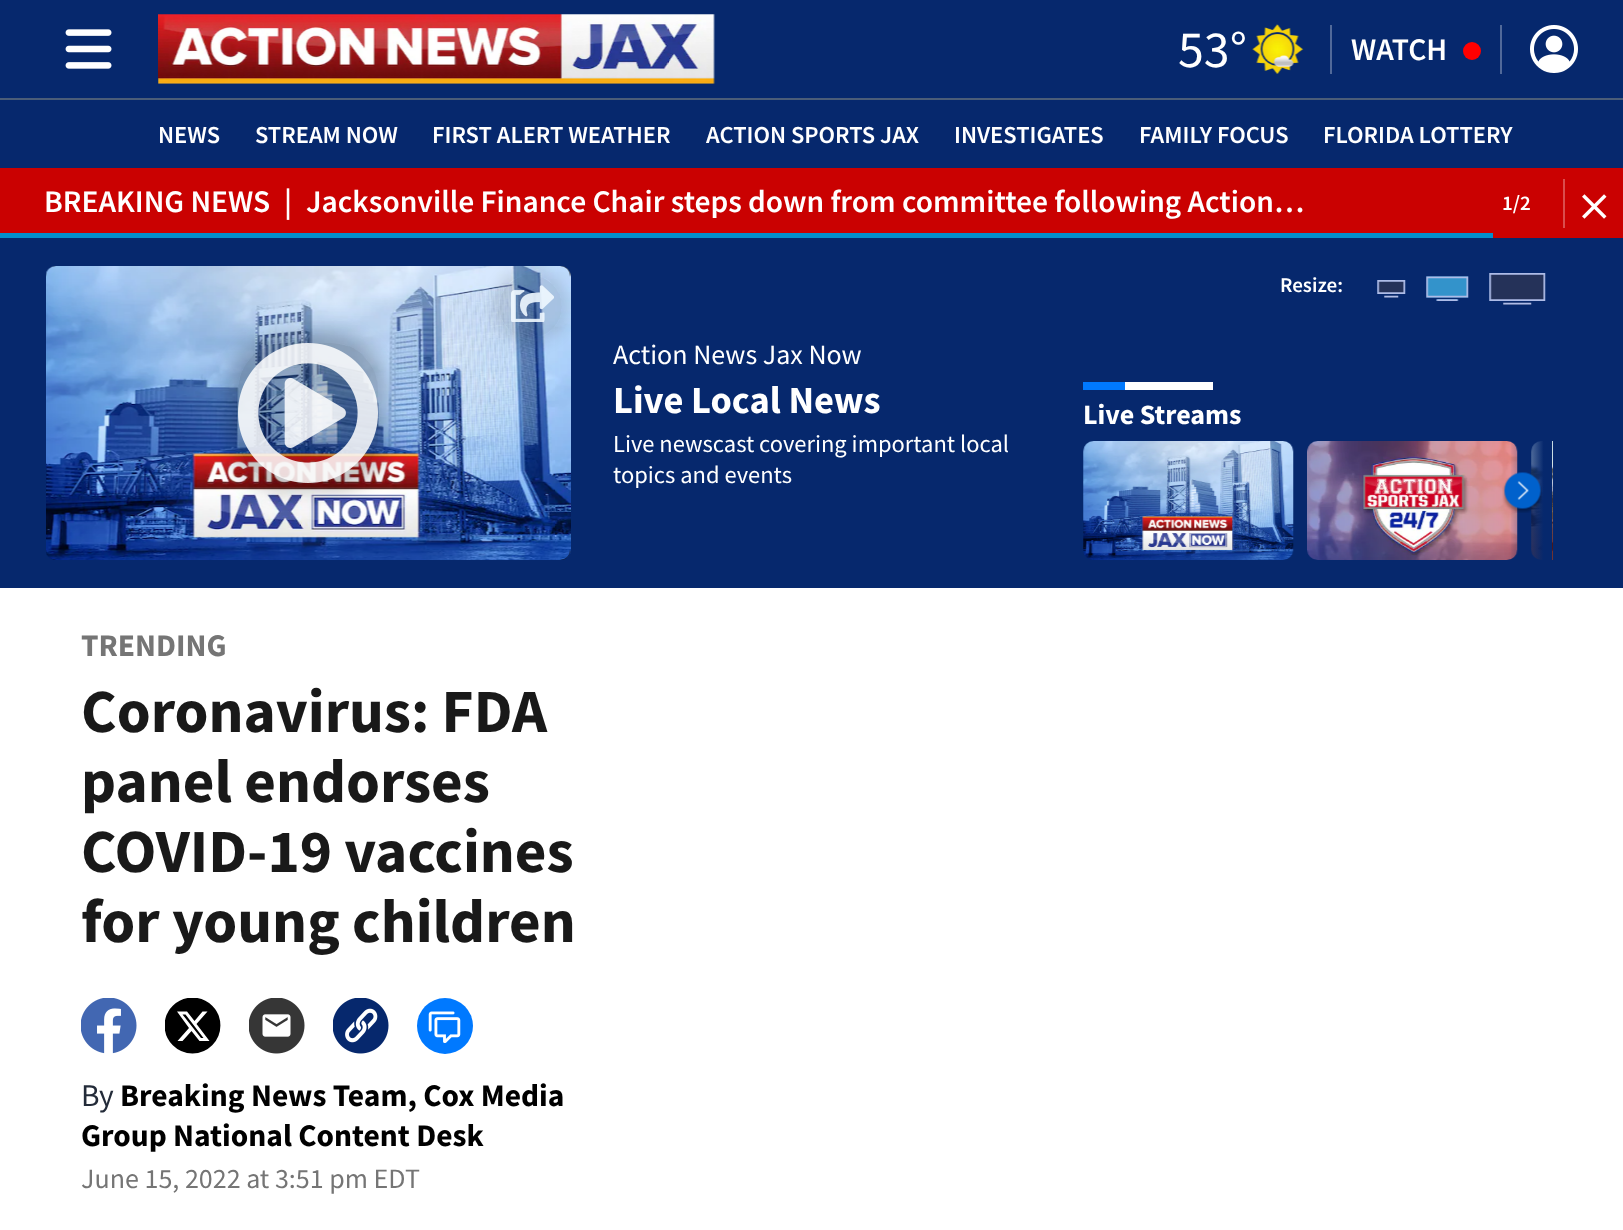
<svg xmlns="http://www.w3.org/2000/svg" width="1623" height="1230" viewBox="0 0 1623 1230">
  <defs>
    <clipPath id="clip1"><rect x="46" y="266" width="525" height="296"/></clipPath>
    <clipPath id="clip2"><path d="M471 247H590V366H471ZM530.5 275C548 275 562 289 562 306.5C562 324 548 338 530.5 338C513 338 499 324 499 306.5C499 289 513 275 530.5 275Z" clip-rule="evenodd"/></clipPath>
    <clipPath id="clip3"><path d="M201 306H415V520H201ZM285 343H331C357 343 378 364 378 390V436C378 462 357 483 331 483H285C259 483 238 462 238 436V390C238 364 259 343 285 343Z" clip-rule="evenodd"/></clipPath>
    <linearGradient id="g1" gradientUnits="userSpaceOnUse" x1="1510" y1="490" x2="1552" y2="490"><stop offset="0" stop-color="rgb(6,40,109)" stop-opacity="0"/><stop offset="0.8" stop-color="rgb(6,40,109)"/></linearGradient>
    <clipPath id="clip4"><rect x="165" y="998" width="56" height="56"/></clipPath>
  </defs>
  <rect width="100%" height="100%" fill="rgb(255,255,255)"/>
  <rect x="0" y="0" width="1623" height="98" fill="rgb(6,40,109)"/>
  <image x="65" y="29" width="47" height="40" href="pic1.png"/>
  <image x="158" y="14" width="557" height="70" href="pic2.png"/>
  <text x="1178" y="67" font-family="Source Sans Pro" font-size="52" fill="rgb(255,255,255)">53°</text>
  <image x="1252" y="24" width="52" height="50" href="pic3.png"/>
  <rect x="1330" y="25" width="2" height="49" fill="rgb(81,105,153)"/>
  <text x="1351" y="60" font-family="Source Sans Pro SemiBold" font-size="31.5" font-weight="600" fill="rgb(255,255,255)">WATCH</text>
  <circle cx="1472" cy="51" r="9" fill="rgb(255,0,0)"/>
  <rect x="1500" y="25" width="2" height="49" fill="rgb(81,105,153)"/>
  <image x="1530" y="25" width="48" height="48" href="pic4.png"/>
  <rect x="0" y="100" width="1623" height="68" fill="rgb(6,40,109)"/>
  <rect x="0" y="98" width="1623" height="2" fill="rgb(75,93,120)"/>
  <g font-family="Source Sans Pro SemiBold" font-size="24.5" font-weight="600" fill="rgb(255,255,255)">
    <text x="158" y="143">NEWS</text>
    <text x="255" y="143">STREAM NOW</text>
    <text x="432" y="143">FIRST ALERT WEATHER</text>
    <text x="706" y="143">ACTION SPORTS JAX</text>
    <text x="954" y="143">INVESTIGATES</text>
    <text x="1139" y="143">FAMILY FOCUS</text>
    <text x="1323" y="143">FLORIDA LOTTERY</text>
  </g>
  <rect x="0" y="168" width="1623" height="70" fill="rgb(202,1,1)"/>
  <g font-family="Source Sans Pro SemiBold" font-size="31.5" font-weight="600" fill="rgb(255,255,255)">
    <text x="44" y="212">BREAKING NEWS</text>
    <text x="284" y="212">|</text>
    <text x="306" y="212">Jacksonville Finance Chair steps down from committee following Action…</text>
  </g>
  <rect x="0" y="233" width="1493" height="5" fill="rgb(2,144,205)"/>
  <text x="1502" y="210" font-family="Source Sans Pro SemiBold" font-size="21" font-weight="600" fill="rgb(255,255,255)">1/2</text>
  <rect x="1563" y="179" width="2" height="49" fill="rgb(218,77,77)"/>
  <image x="1582" y="194" width="25" height="25" href="pic5.png"/>
  <rect x="0" y="238" width="1623" height="350" fill="rgb(6,40,109)"/>
  <rect x="46" y="266" width="525" height="294" rx="11" fill="rgb(0,0,0)"/>
  <image x="46" y="266" width="525" height="294" href="pic7.png"/>
  <g clip-path="url(#clip1)">
    <g clip-path="url(#clip2)">
      <rect x="492" y="268" width="77" height="77" rx="38.5" fill="rgba(0,0,0,0.1)" filter="blur(6.5px)"/>
    </g>
  </g>
  <circle cx="530.5" cy="306.5" r="31.5" fill="rgba(0,0,0,0.1)"/>
  <image x="511" y="285" width="43" height="37" href="pic6.png"/>
  <g clip-path="url(#clip3)">
    <rect x="229" y="334" width="158" height="158" rx="56" fill="rgba(0,0,0,0.21)" filter="blur(9px)"/>
  </g>
  <rect x="238" y="343" width="140" height="140" rx="47" fill="rgba(0,0,0,0.21)"/>
  <image x="238" y="343" width="140" height="140" href="pic8.png"/>
  <text x="1280" y="292" font-family="Source Sans Pro SemiBold" font-size="21" font-weight="600" fill="rgb(255,255,255)">Resize:</text>
  <image x="1377" y="280" width="29" height="18" href="pic9.png"/>
  <image x="1426" y="276" width="43" height="25" href="pic10.png"/>
  <image x="1489" y="273" width="57" height="32" href="pic11.png"/>
  <text x="613" y="364" font-family="Source Sans Pro" font-size="28" fill="rgb(255,255,255)">Action News Jax Now</text>
  <text x="613" y="413" font-family="Source Sans Pro" font-size="38.5" font-weight="bold" fill="rgb(255,255,255)">Live Local News</text>
  <g font-family="Source Sans Pro" font-size="24.5" fill="rgb(255,255,255)">
    <text>
      <tspan x="613" y="452">Live newscast covering important local</tspan>
      <tspan x="613" y="483">topics and events</tspan>
    </text>
  </g>
  <rect x="1125" y="382" width="88" height="8" fill="rgb(255,255,255)"/>
  <rect x="1083" y="382" width="42" height="8" fill="rgb(0,121,255)"/>
  <text x="1083" y="424" font-family="Source Sans Pro" font-size="28" font-weight="bold" fill="rgb(255,255,255)">Live Streams</text>
  <image x="1083" y="441" width="211" height="119" href="pic12.png"/>
  <image x="1307" y="441" width="211" height="119" href="pic13.png"/>
  <image x="1531" y="441" width="22" height="119" href="pic14.png"/>
  <rect x="1511" y="441" width="41" height="119" fill="url(#g1)"/>
  <image x="1502" y="472" width="40" height="41" href="pic15.png"/>
  <text x="81" y="656" font-family="Source Sans Pro" font-size="31.5" font-weight="bold" fill="rgb(117,117,117)">TRENDING</text>
  <g font-family="Source Sans Pro" font-size="61.25" font-weight="bold" fill="rgb(25,25,25)">
    <text>
      <tspan x="81" y="732">Coronavirus: FDA</tspan>
      <tspan x="81" y="802">panel endorses</tspan>
      <tspan x="81" y="872">COVID-19 vaccines</tspan>
      <tspan x="81" y="942">for young children</tspan>
    </text>
  </g>
  <image x="81" y="998" width="56" height="56" href="pic16.png"/>
  <circle cx="192.5" cy="1025.5" r="27" fill="rgb(0,0,0)"/>
  <g clip-path="url(#clip4)">
    <circle cx="192.5" cy="1025.5" r="27" fill="none" stroke="rgb(0,0,0)" stroke-width="1.8"/>
  </g>
  <path d="M202.5 1011.5H207.5L196.5 1024L209.5 1041H199.5L191.5 1031L182.5 1041H177.5L189 1028L177 1011.5H187L194.5 1021ZM201 1038H203.5L185.5 1014.5H182.5Z" fill="rgb(255,255,255)"/>
  <image x="249" y="998" width="56" height="56" href="pic17.png"/>
  <image x="333" y="998" width="56" height="56" href="pic18.png"/>
  <circle cx="445" cy="1026" r="28" fill="rgb(0,121,255)"/>
  <image x="428" y="1011" width="33" height="32" href="pic19.png"/>
  <text x="81" y="1106" font-family="Source Sans Pro" font-size="31.5" fill="rgb(35,43,57)">By</text>
  <g font-family="Source Sans Pro" font-size="31.5" font-weight="bold" fill="rgb(0,0,0)">
    <text x="120" y="1106">Breaking News Team, Cox Media</text>
    <text x="81" y="1146">Group National Content Desk</text>
  </g>
  <text x="81" y="1188" font-family="Source Sans Pro" font-size="28" fill="rgb(117,117,117)">June 15, 2022 at 3:51 pm EDT</text>
</svg>
